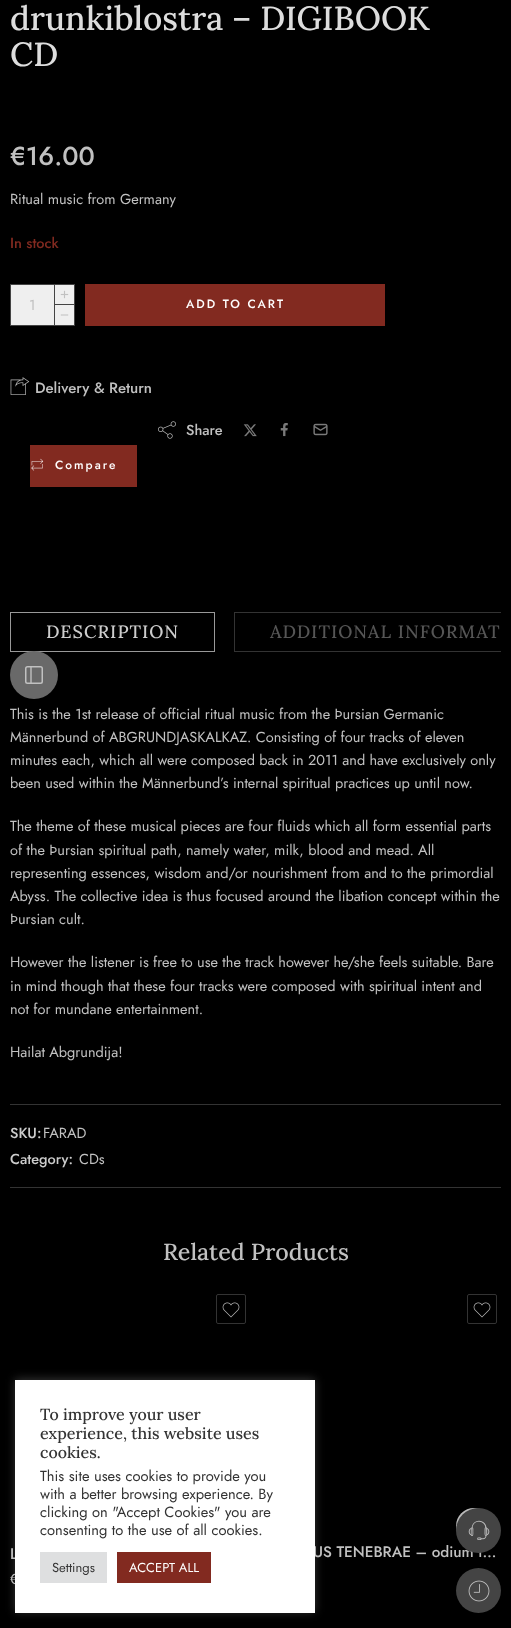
<svg xmlns="http://www.w3.org/2000/svg" width="511" height="1628" viewBox="0 0 511 1628">
  <defs>
    <clipPath id="clip1"><rect x="10" y="602" width="491" height="75"/></clipPath>
  </defs>
  <rect width="100%" height="100%" fill="rgb(0,0,0)"/>
  <g font-family="Lora" font-size="33.4" font-weight="500" fill="rgb(221,221,221)">
    <text>
      <tspan x="10" y="30">drunkiblostra – DIGIBOOK</tspan>
      <tspan x="10" y="66">CD</tspan>
    </text>
  </g>
  <text x="10" y="165" font-family="Jost" font-size="26" font-weight="500" fill="rgb(193,193,193)">€16.00</text>
  <text x="10" y="204" font-family="Jost" font-size="14.5" fill="rgb(193,193,193)">Ritual music from Germany</text>
  <text x="10" y="248" font-family="Jost" font-size="14.5" font-weight="500" fill="rgb(130,42,32)">In stock</text>
  <rect x="10.5" y="284.5" width="44" height="41" fill="rgb(239,239,239)" stroke="rgb(68,68,68)"/>
  <text x="29" y="310" font-family="Jost" font-size="14.5" fill="rgb(193,193,193)">1</text>
  <rect x="54.5" y="284.5" width="20" height="20" fill="rgb(239,239,239)" stroke="rgb(68,68,68)"/>
  <image x="60" y="290" width="9" height="9" href="pic1.png"/>
  <rect x="55" y="305" width="19" height="20" fill="rgb(239,239,239)"/>
  <rect x="74" y="305" width="1" height="21" fill="rgb(68,68,68)"/>
  <rect x="54" y="325" width="21" height="1" fill="rgb(68,68,68)"/>
  <image x="60" y="314" width="9" height="2" href="pic2.png"/>
  <rect x="85" y="284" width="300" height="42" fill="rgb(130,42,32)"/>
  <text x="186" y="308" font-family="Jost" font-size="12" font-weight="500" letter-spacing="2" fill="rgb(255,255,255)">ADD TO CART</text>
  <image x="10" y="377" width="20" height="18" href="pic3.png"/>
  <text x="35" y="393" font-family="Jost" font-size="15" font-weight="500" fill="rgb(193,193,193)">Delivery &amp; Return</text>
  <image x="158" y="421" width="18" height="18" href="pic4.png"/>
  <text x="186" y="435" font-family="Jost" font-size="14.5" font-weight="500" fill="rgb(193,193,193)">Share</text>
  <image x="243" y="424" width="14" height="13" href="pic5.png"/>
  <image x="280" y="423" width="8" height="14" href="pic6.png"/>
  <image x="313" y="423" width="15" height="13" href="pic7.png"/>
  <rect x="30" y="445" width="107" height="42" fill="rgb(130,42,32)"/>
  <image x="31" y="458" width="13" height="13" href="pic8.png"/>
  <text x="55" y="469" font-family="Jost" font-size="12" font-weight="500" letter-spacing="2" fill="rgb(255,255,255)">Compare</text>
  <rect x="10.5" y="612.5" width="204" height="39" fill="none" stroke="rgb(153,153,153)"/>
  <text x="46" y="638" font-family="Lora" font-size="18" font-weight="500" letter-spacing="1" fill="rgb(204,204,204)">DESCRIPTION</text>
  <g clip-path="url(#clip1)">
    <rect x="234.5" y="612.5" width="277" height="39" fill="none" stroke="rgb(51,51,51)"/>
  </g>
  <text x="270" y="638" font-family="Lora" font-size="18" font-weight="500" letter-spacing="1" fill="rgb(85,85,85)">ADDITIONAL INFORMAT</text>
  <g font-family="Jost" font-size="14.5" fill="rgb(193,193,193)">
    <text>
      <tspan x="10" y="719">This is the 1st release of official ritual music from the Þursian Germanic</tspan>
      <tspan x="10" y="742">Männerbund of ABGRUNDJASKALKAZ. Consisting of four tracks of eleven</tspan>
      <tspan x="10" y="765">minutes each, which all were composed back in 2011 and have exclusively only</tspan>
      <tspan x="10" y="788">been used within the Männerbund’s internal spiritual practices up until now.</tspan>
    </text>
    <text>
      <tspan x="10" y="831">The theme of these musical pieces are four fluids which all form essential parts</tspan>
      <tspan x="10" y="855">of the Þursian spiritual path, namely water, milk, blood and mead. All</tspan>
      <tspan x="10" y="878">representing essences, wisdom and/or nourishment from and to the primordial</tspan>
      <tspan x="10" y="901">Abyss. The collective idea is thus focused around the libation concept within the</tspan>
      <tspan x="10" y="924">Þursian cult.</tspan>
    </text>
    <text>
      <tspan x="10" y="967">However the listener is free to use the track however he/she feels suitable. Bare</tspan>
      <tspan x="10" y="991">in mind though that these four tracks were composed with spiritual intent and</tspan>
      <tspan x="10" y="1014">not for mundane entertainment.</tspan>
    </text>
    <text x="10" y="1057">Hailat Abgrundija!</text>
  </g>
  <rect x="10" y="1104" width="491" height="1" fill="rgb(51,51,51)"/>
  <rect x="10" y="1187" width="491" height="1" fill="rgb(51,51,51)"/>
  <text x="10" y="1138" font-family="Jost" font-size="14.5" font-weight="500" fill="rgb(204,204,204)">SKU:</text>
  <text x="43" y="1138" font-family="Jost" font-size="14.5" fill="rgb(193,193,193)">FARAD</text>
  <text x="10" y="1164" font-family="Jost" font-size="14.5" font-weight="500" fill="rgb(204,204,204)">Category:</text>
  <text x="79" y="1164" font-family="Jost" font-size="14.5" fill="rgb(193,193,193)">CDs</text>
  <circle cx="34" cy="675" r="24" fill="rgb(105,105,105)"/>
  <rect x="25.75" y="666.75" width="16.5" height="16.5" rx="1.75" fill="none" stroke="rgb(193,193,193)" stroke-width="1.5"/>
  <path d="M31 667V683" fill="none" stroke="rgb(193,193,193)" stroke-width="1.4" stroke-linecap="round" stroke-linejoin="round"/>
  <text x="163" y="1260" font-family="Lora" font-size="23.25" font-weight="500" fill="rgb(193,193,193)">Related Products</text>
  <rect x="216.5" y="1294.5" width="29" height="29" rx="1.5" fill="none" stroke="rgb(51,51,51)"/>
  <image x="222" y="1302" width="18" height="16" href="pic9.png"/>
  <text x="10" y="1559" font-family="Jost" font-size="15.25" font-weight="500" fill="rgb(193,193,193)">L</text>
  <text x="10" y="1584" font-family="Jost" font-size="14.5" fill="rgb(193,193,193)">€</text>
  <rect x="467.5" y="1294.5" width="29" height="29" rx="1.5" fill="none" stroke="rgb(51,51,51)"/>
  <image x="473" y="1302" width="18" height="16" href="pic9.png"/>
  <circle cx="474" cy="1526" r="18" fill="rgb(193,193,193)"/>
  <text x="313" y="1557" font-family="Jost" font-size="15.25" font-weight="500" fill="rgb(193,193,193)">US TENEBRAE – odium i…</text>
  <rect x="15" y="1379" width="300" height="233" fill="rgba(172,171,171,0.3)" filter="blur(5px)"/>
  <rect x="15" y="1380" width="300" height="233" fill="rgb(255,255,255)"/>
  <g font-family="Lora" font-size="16" font-weight="500" fill="rgb(51,51,51)">
    <text>
      <tspan x="40" y="1420">To improve your user</tspan>
      <tspan x="40" y="1439">experience, this website uses</tspan>
      <tspan x="40" y="1458">cookies.</tspan>
    </text>
  </g>
  <g font-family="Jost" font-size="14.7" fill="rgb(51,51,51)">
    <text>
      <tspan x="40" y="1481">This site uses cookies to provide you</tspan>
      <tspan x="40" y="1499">with a better browsing experience. By</tspan>
      <tspan x="40" y="1517">clicking on "Accept Cookies" you are</tspan>
      <tspan x="40" y="1535">consenting to the use of all cookies.</tspan>
    </text>
  </g>
  <rect x="40" y="1552" width="67" height="31" fill="rgb(222,223,224)"/>
  <text x="52" y="1572" font-family="Jost" font-size="13" fill="rgb(51,51,51)">Settings</text>
  <rect x="117" y="1552" width="94" height="31" fill="rgb(130,42,32)"/>
  <text x="129" y="1572" font-family="Jost" font-size="13" fill="rgb(255,255,255)">ACCEPT ALL</text>
  <rect x="456" y="1508" width="47" height="47" rx="23.5" fill="rgba(0,0,0,0.1)" filter="blur(5px)"/>
  <circle cx="478.5" cy="1530.5" r="22.5" fill="rgb(68,68,68)"/>
  <image x="468" y="1520" width="22" height="20" href="pic10.png"/>
  <circle cx="478.5" cy="1590.5" r="22.5" fill="rgb(68,68,68)"/>
  <image x="468" y="1580" width="22" height="22" href="pic11.png"/>
</svg>
